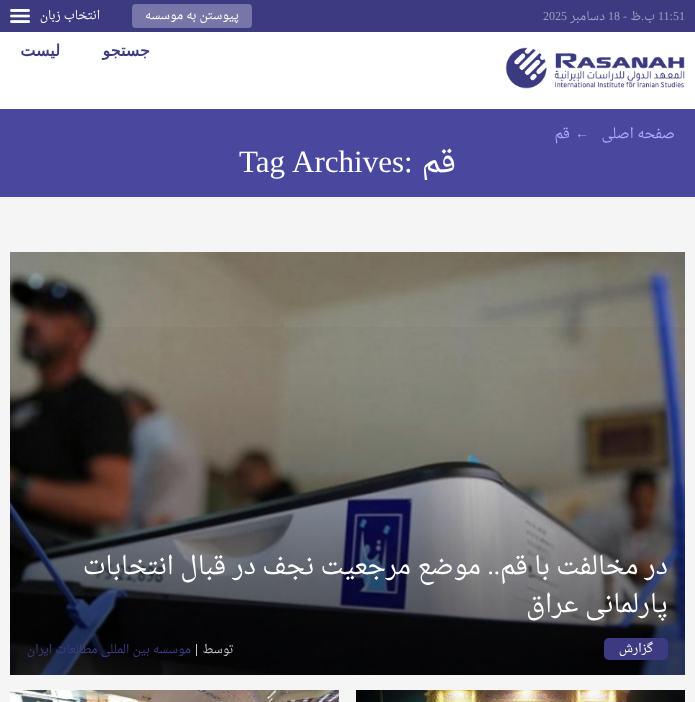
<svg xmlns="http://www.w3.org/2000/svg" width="695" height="702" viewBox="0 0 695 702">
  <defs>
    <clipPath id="clip1"><rect x="63" y="145" width="570" height="35"/></clipPath>
  </defs>
  <rect width="100%" height="100%" fill="rgb(245,245,245)"/>
  <rect x="0" y="32" width="695" height="77" fill="rgb(255,255,255)"/>
  <rect x="0" y="0" width="695" height="32" fill="rgb(60,59,129)"/>
  <text x="658" y="20" font-family="Liberation Serif" font-size="12" fill="rgb(158,157,192)">11:51</text>
  <g font-family="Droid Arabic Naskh" font-size="12" direction="rtl" fill="rgb(158,157,192)">
    <text x="655" y="20">ب</text>
    <text x="641" y="20">ظ</text>
  </g>
  <text x="627" y="20" font-family="Liberation Serif" font-size="12" direction="rtl" fill="rgb(158,157,192)">-</text>
  <text x="608" y="20" font-family="Liberation Serif" font-size="12" fill="rgb(158,157,192)">18</text>
  <text x="605" y="20" font-family="Droid Arabic Naskh" font-size="12" direction="rtl" fill="rgb(158,157,192)">دسامبر</text>
  <text x="543" y="20" font-family="Liberation Serif" font-size="12" fill="rgb(158,157,192)">2025</text>
  <text x="644" y="20" font-family="Liberation Serif" font-size="12" direction="rtl" fill="rgb(158,157,192)">.</text>
  <rect x="132" y="4" width="120" height="24" rx="4" fill="rgb(119,118,167)"/>
  <text x="239" y="19" font-family="Droid Arabic Naskh" font-size="12" direction="rtl" fill="rgb(255,255,255)">پیوستن به موسسه</text>
  <image x="10" y="9" width="20" height="14" href="pic1.png"/>
  <text x="100" y="19" font-family="Droid Arabic Naskh" font-size="12" direction="rtl" fill="rgb(255,255,255)">انتخاب زبان</text>
  <image x="505" y="47" width="180" height="42" href="pic2.png"/>
  <g font-family="DejaVu Sans" font-size="16" font-weight="bold" direction="rtl" fill="rgb(60,59,129)">
    <text x="150" y="56">جستجو</text>
    <text x="60" y="56">لیست</text>
  </g>
  <rect x="0" y="109" width="695" height="88" fill="rgb(74,72,158)"/>
  <text x="675" y="138" font-family="Droid Arabic Naskh" font-size="14" direction="rtl" fill="rgb(173,171,253)">صفحه اصلى</text>
  <text x="575" y="138" font-family="Liberation Serif" font-size="14" fill="rgb(173,171,253)">←</text>
  <text x="570" y="138" font-family="Droid Arabic Naskh" font-size="14" direction="rtl" fill="rgb(173,171,253)">قم</text>
  <g clip-path="url(#clip1)">
    <text x="456" y="172" font-family="Droid Arabic Naskh" font-size="31" direction="rtl" fill="rgb(255,255,255)">قم</text>
  </g>
  <text x="239" y="172" word-spacing="1" font-family="Liberation Serif" font-size="31" fill="rgb(255,255,255)">Tag Archives:</text>
  <image x="10" y="252" width="675" height="423" href="pic3.png"/>
  <image x="10" y="327" width="675" height="348" href="pic4.png"/>
  <text x="668" y="574" font-family="Droid Arabic Naskh" font-size="25" direction="rtl" fill="rgb(255,255,255)">در مخالفت با قم</text>
  <text x="500" y="574" font-family="Liberation Serif" font-size="25" direction="rtl" fill="rgb(255,255,255)">..</text>
  <g font-family="Droid Arabic Naskh" font-size="25" direction="rtl" fill="rgb(255,255,255)">
    <text x="481" y="574">موضع مرجعیت نجف در قبال انتخابات</text>
    <text x="668" y="612">پارلمانی عراق</text>
  </g>
  <rect x="604" y="638" width="64" height="22" rx="5" fill="rgb(60,59,129)"/>
  <text x="653" y="652" font-family="Droid Arabic Naskh" font-size="12" direction="rtl" fill="rgb(255,255,255)">گزارش</text>
  <rect x="196" y="644" width="1" height="12" fill="rgb(194,194,194)"/>
  <text x="234" y="653" font-family="Droid Arabic Naskh" font-size="12" direction="rtl" fill="rgb(194,194,194)">توسط</text>
  <text x="191" y="653" font-family="Droid Arabic Naskh" font-size="12" direction="rtl" fill="rgb(60,59,129)">موسسه بين المللى مطالعات ايران</text>
  <image x="356" y="690" width="329" height="12" href="pic5.png"/>
  <image x="10" y="690" width="329" height="12" href="pic6.png"/>
</svg>
